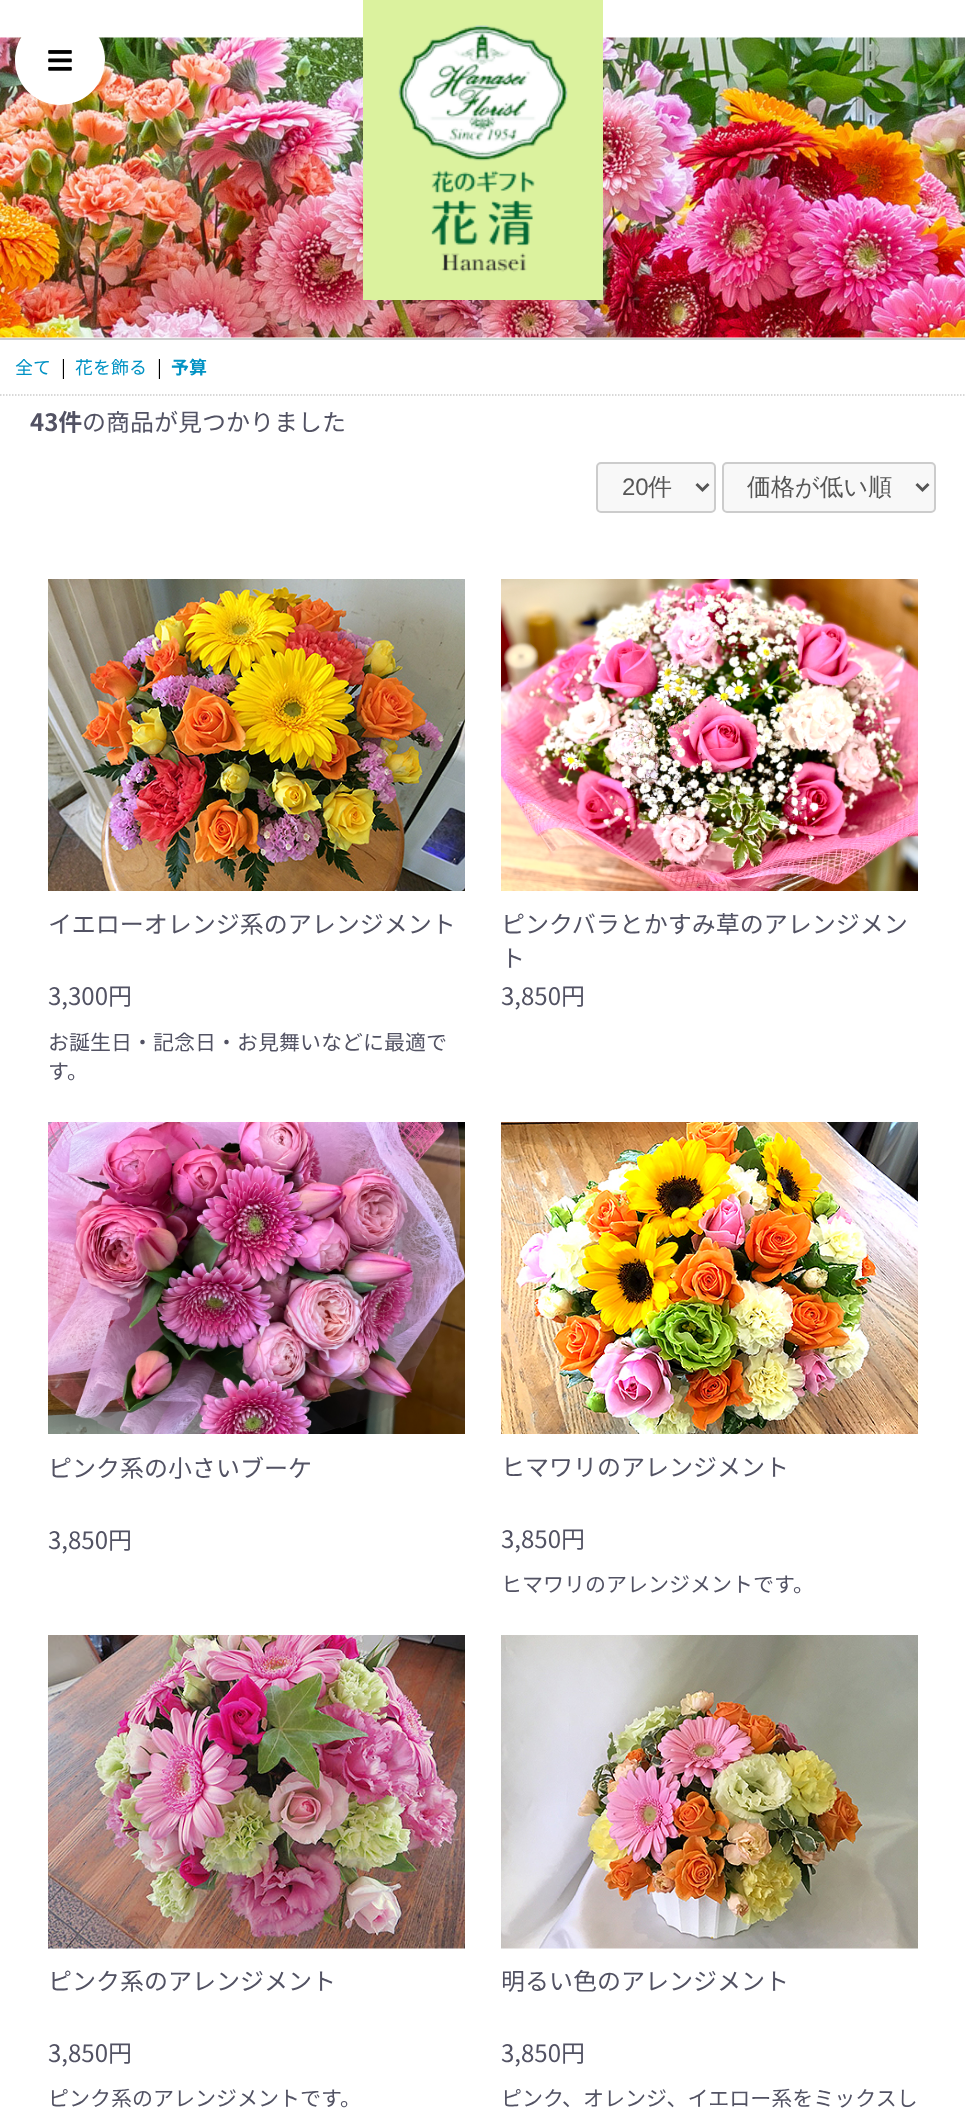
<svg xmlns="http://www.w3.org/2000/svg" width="965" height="2123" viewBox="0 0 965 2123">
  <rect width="100%" height="100%" fill="rgb(255,255,255)"/>
  <image x="0" y="37" width="965" height="301" href="pic3.png"/>
  <circle cx="60" cy="60" r="45" fill="rgb(255,255,255)"/>
  <image x="48" y="50" width="24" height="21" href="pic1.png"/>
  <image x="363" y="0" width="240" height="300" href="pic2.png"/>
  <rect x="0" y="338" width="965" height="2" fill="rgb(204,204,204)"/>
  <path d="M0 395H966" fill="none" stroke="rgb(204,204,204)" stroke-width="1.5" stroke-dasharray="1.5 1.5"/>
  <text x="15" y="374" font-family="Noto Sans JP" font-size="18" fill="rgb(0,146,196)">全て</text>
  <text x="61" y="374" font-family="Noto Sans JP" font-size="18" fill="rgb(0,0,0)">|</text>
  <text x="75" y="374" font-family="Noto Sans JP" font-size="18" fill="rgb(0,146,196)">花を飾る</text>
  <text x="157" y="374" font-family="Noto Sans JP" font-size="18" fill="rgb(0,0,0)">|</text>
  <text x="171" y="374" font-family="Noto Sans JP" font-size="18" font-weight="bold" fill="rgb(0,146,196)">予算</text>
  <text x="30" y="431" font-family="Noto Sans JP" font-size="24" font-weight="bold" fill="rgb(82,82,99)">43件</text>
  <text x="82" y="431" font-family="Noto Sans JP" font-size="24" fill="rgb(82,82,99)">の商品が見つかりました</text>
  <rect x="597" y="463" width="118" height="49" rx="4" fill="rgb(248,248,248)" stroke="rgb(204,204,204)" stroke-width="2"/>
  <path d="M696.5 484L702.5 490L708.5 484" fill="none" stroke="rgb(85,85,85)" stroke-width="3"/>
  <text x="622" y="495" font-family="Liberation Sans" font-size="24" fill="rgb(85,85,85)">20</text>
  <text x="648" y="495" font-family="WenQuanYi Zen Hei" font-size="24" font-weight="500" fill="rgb(85,85,85)">件</text>
  <rect x="723" y="463" width="212" height="49" rx="4" fill="rgb(248,248,248)" stroke="rgb(204,204,204)" stroke-width="2"/>
  <path d="M916.5 484L922.5 490L928.5 484" fill="none" stroke="rgb(85,85,85)" stroke-width="3"/>
  <text x="747" y="495" font-family="WenQuanYi Zen Hei" font-size="24" font-weight="500" fill="rgb(85,85,85)">価格が低い順</text>
  <image x="48" y="579" width="417" height="312" href="pic4.png"/>
  <g font-family="Noto Sans JP" font-size="24" fill="rgb(82,82,99)">
    <text x="48" y="933">イエローオレンジ系のアレンジメント</text>
    <text x="48" y="1005">3,300円</text>
  </g>
  <g font-family="Noto Sans JP" font-size="21" fill="rgb(82,82,99)">
    <text>
      <tspan x="48" y="1050">お誕生日・記念日・お見舞いなどに最適で</tspan>
      <tspan x="48" y="1079">す。</tspan>
    </text>
  </g>
  <image x="501" y="579" width="417" height="312" href="pic5.png"/>
  <g font-family="Noto Sans JP" font-size="24" fill="rgb(82,82,99)">
    <text>
      <tspan x="501" y="933">ピンクバラとかすみ草のアレンジメン</tspan>
      <tspan x="501" y="967">ト</tspan>
      <tspan x="501" y="1005">3,850円</tspan>
    </text>
  </g>
  <image x="48" y="1122" width="417" height="312" href="pic6.png"/>
  <g font-family="Noto Sans JP" font-size="24" fill="rgb(82,82,99)">
    <text x="48" y="1477">ピンク系の小さいブーケ</text>
    <text x="48" y="1549">3,850円</text>
  </g>
  <image x="501" y="1122" width="417" height="312" href="pic7.png"/>
  <g font-family="Noto Sans JP" font-size="24" fill="rgb(82,82,99)">
    <text x="501" y="1476">ヒマワリのアレンジメント</text>
    <text x="501" y="1548">3,850円</text>
  </g>
  <text x="501" y="1592" font-family="Noto Sans JP" font-size="21" fill="rgb(82,82,99)">ヒマワリのアレンジメントです。</text>
  <image x="48" y="1635" width="417" height="314" href="pic8.png"/>
  <g font-family="Noto Sans JP" font-size="24" fill="rgb(82,82,99)">
    <text x="48" y="1990">ピンク系のアレンジメント</text>
    <text x="48" y="2062">3,850円</text>
  </g>
  <text x="48" y="2106" font-family="Noto Sans JP" font-size="21" fill="rgb(82,82,99)">ピンク系のアレンジメントです。</text>
  <image x="501" y="1635" width="417" height="314" href="pic9.png"/>
  <g font-family="Noto Sans JP" font-size="24" fill="rgb(82,82,99)">
    <text x="501" y="1990">明るい色のアレンジメント</text>
    <text x="501" y="2062">3,850円</text>
  </g>
  <text x="501" y="2106" font-family="Noto Sans JP" font-size="21" fill="rgb(82,82,99)">ピンク、オレンジ、イエロー系をミックスし</text>
</svg>
